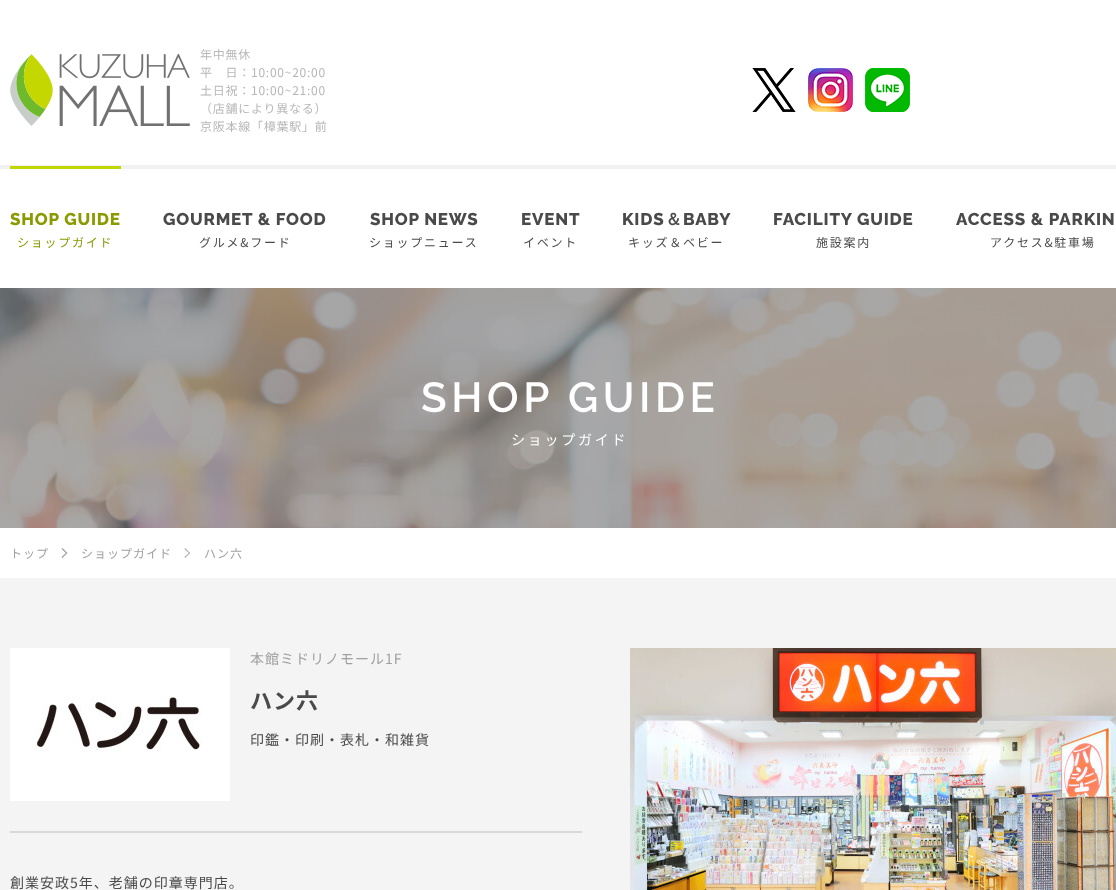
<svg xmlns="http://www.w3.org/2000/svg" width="1116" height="890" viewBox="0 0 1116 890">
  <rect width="100%" height="100%" fill="rgb(255,255,255)"/>
  <rect x="0" y="165" width="1116" height="4" fill="rgb(241,241,241)"/>
  <image x="10" y="54" width="180" height="72" href="pic1.png"/>
  <g font-family="Noto Sans JP" font-size="12" letter-spacing="0.75" fill="rgb(183,183,183)">
    <text>
      <tspan x="200" y="59">年中無休</tspan>
      <tspan x="200" y="77">平　日：10:00~20:00</tspan>
      <tspan x="200" y="95">土日祝：10:00~21:00</tspan>
      <tspan x="200" y="113">（店舗により異なる）</tspan>
      <tspan x="200" y="131">京阪本線「樟葉駅」前</tspan>
    </text>
  </g>
  <image x="752" y="68" width="44" height="44" href="pic2.png"/>
  <image x="808" y="68" width="45" height="44" href="pic3.png"/>
  <image x="865" y="68" width="45" height="44" href="pic4.png"/>
  <rect x="10" y="166" width="111" height="3" fill="rgb(192,215,0)"/>
  <text x="10" y="225" font-family="Raleway" font-size="17" font-weight="800" letter-spacing="0.8" fill="rgb(138,154,0)">SHOP GUIDE</text>
  <text x="17" y="247" font-family="Noto Sans JP" font-size="12" letter-spacing="1.75" fill="rgb(138,154,0)">ショップガイド</text>
  <text x="163" y="225" font-family="Raleway" font-size="17" font-weight="800" letter-spacing="0.8" fill="rgb(74,74,74)">GOURMET &amp; FOOD</text>
  <text x="199" y="247" font-family="Noto Sans JP" font-size="12" letter-spacing="1.75" fill="rgb(74,74,74)">グルメ&amp;フード</text>
  <text x="370" y="225" font-family="Raleway" font-size="17" font-weight="800" letter-spacing="0.8" fill="rgb(74,74,74)">SHOP NEWS</text>
  <text x="369" y="247" font-family="Noto Sans JP" font-size="12" letter-spacing="1.75" fill="rgb(74,74,74)">ショップニュース</text>
  <text x="521" y="225" font-family="Raleway" font-size="17" font-weight="800" letter-spacing="0.8" fill="rgb(74,74,74)">EVENT</text>
  <text x="523" y="247" font-family="Noto Sans JP" font-size="12" letter-spacing="1.75" fill="rgb(74,74,74)">イベント</text>
  <text x="622" y="225" font-family="Raleway" font-size="17" font-weight="800" letter-spacing="0.8" fill="rgb(74,74,74)">KIDS</text>
  <text x="665" y="225" font-family="WenQuanYi Zen Hei" font-size="17" font-weight="bold" letter-spacing="0.8" fill="rgb(74,74,74)">＆</text>
  <text x="683" y="225" font-family="Raleway" font-size="17" font-weight="800" letter-spacing="0.8" fill="rgb(74,74,74)">BABY</text>
  <text x="628" y="247" font-family="Noto Sans JP" font-size="12" letter-spacing="1.75" fill="rgb(74,74,74)">キッズ＆ベビー</text>
  <text x="773" y="225" font-family="Raleway" font-size="17" font-weight="800" letter-spacing="0.8" fill="rgb(74,74,74)">FACILITY GUIDE</text>
  <text x="816" y="247" font-family="Noto Sans JP" font-size="12" letter-spacing="1.75" fill="rgb(74,74,74)">施設案内</text>
  <text x="956" y="225" font-family="Raleway" font-size="17" font-weight="800" letter-spacing="0.8" fill="rgb(74,74,74)">ACCESS &amp; PARKIN</text>
  <text x="990" y="247" font-family="Noto Sans JP" font-size="12" letter-spacing="1.75" fill="rgb(74,74,74)">アクセス&amp;駐車場</text>
  <rect x="0" y="578" width="1116" height="312" fill="rgb(244,244,244)"/>
  <image x="0" y="288" width="1116" height="240" href="pic5.png"/>
  <text x="421" y="412" font-family="Raleway" font-size="42" font-weight="600" letter-spacing="4.6" fill="rgb(255,255,255)">SHOP GUIDE</text>
  <text x="511" y="445" font-family="Noto Sans JP" font-size="14" letter-spacing="2.75" fill="rgb(255,255,255)">ショップガイド</text>
  <text x="10" y="558" font-family="Noto Sans JP" font-size="12" letter-spacing="1" fill="rgb(160,160,160)">トップ</text>
  <path d="M62.5 548L67.5 553L66.5 553.5L61.5 549Z" fill="rgb(160,160,160)"/>
  <path d="M66.5 552.5L67.5 553L62.5 558L61.5 557Z" fill="rgb(160,160,160)"/>
  <text x="81" y="558" font-family="Noto Sans JP" font-size="12" letter-spacing="1" fill="rgb(160,160,160)">ショップガイド</text>
  <path d="M185 548L190 553L189.5 553.5L184.5 549Z" fill="rgb(160,160,160)"/>
  <path d="M189.5 552.5L190 553L185 558L184.5 557Z" fill="rgb(160,160,160)"/>
  <text x="204" y="558" font-family="Noto Sans JP" font-size="12" letter-spacing="1" fill="rgb(160,160,160)">ハン六</text>
  <rect x="10" y="831" width="572" height="2" fill="rgb(217,217,217)"/>
  <image x="10" y="648" width="220" height="153" href="pic6.png"/>
  <text x="250" y="664" font-family="Noto Sans JP" font-size="14" letter-spacing="1" fill="rgb(160,160,160)">本館ミドリノモール1F</text>
  <text x="250" y="709" font-family="Noto Sans JP" font-size="22" font-weight="bold" letter-spacing="1" fill="rgb(74,74,74)">ハン六</text>
  <g font-family="Noto Sans JP" font-size="14" letter-spacing="1" fill="rgb(74,74,74)">
    <text x="250" y="745">印鑑・印刷・表札・和雑貨</text>
    <text x="10" y="888">創業安政5年、老舗の印章専門店。</text>
  </g>
  <image x="630" y="648" width="486" height="242" href="pic7.png"/>
</svg>
